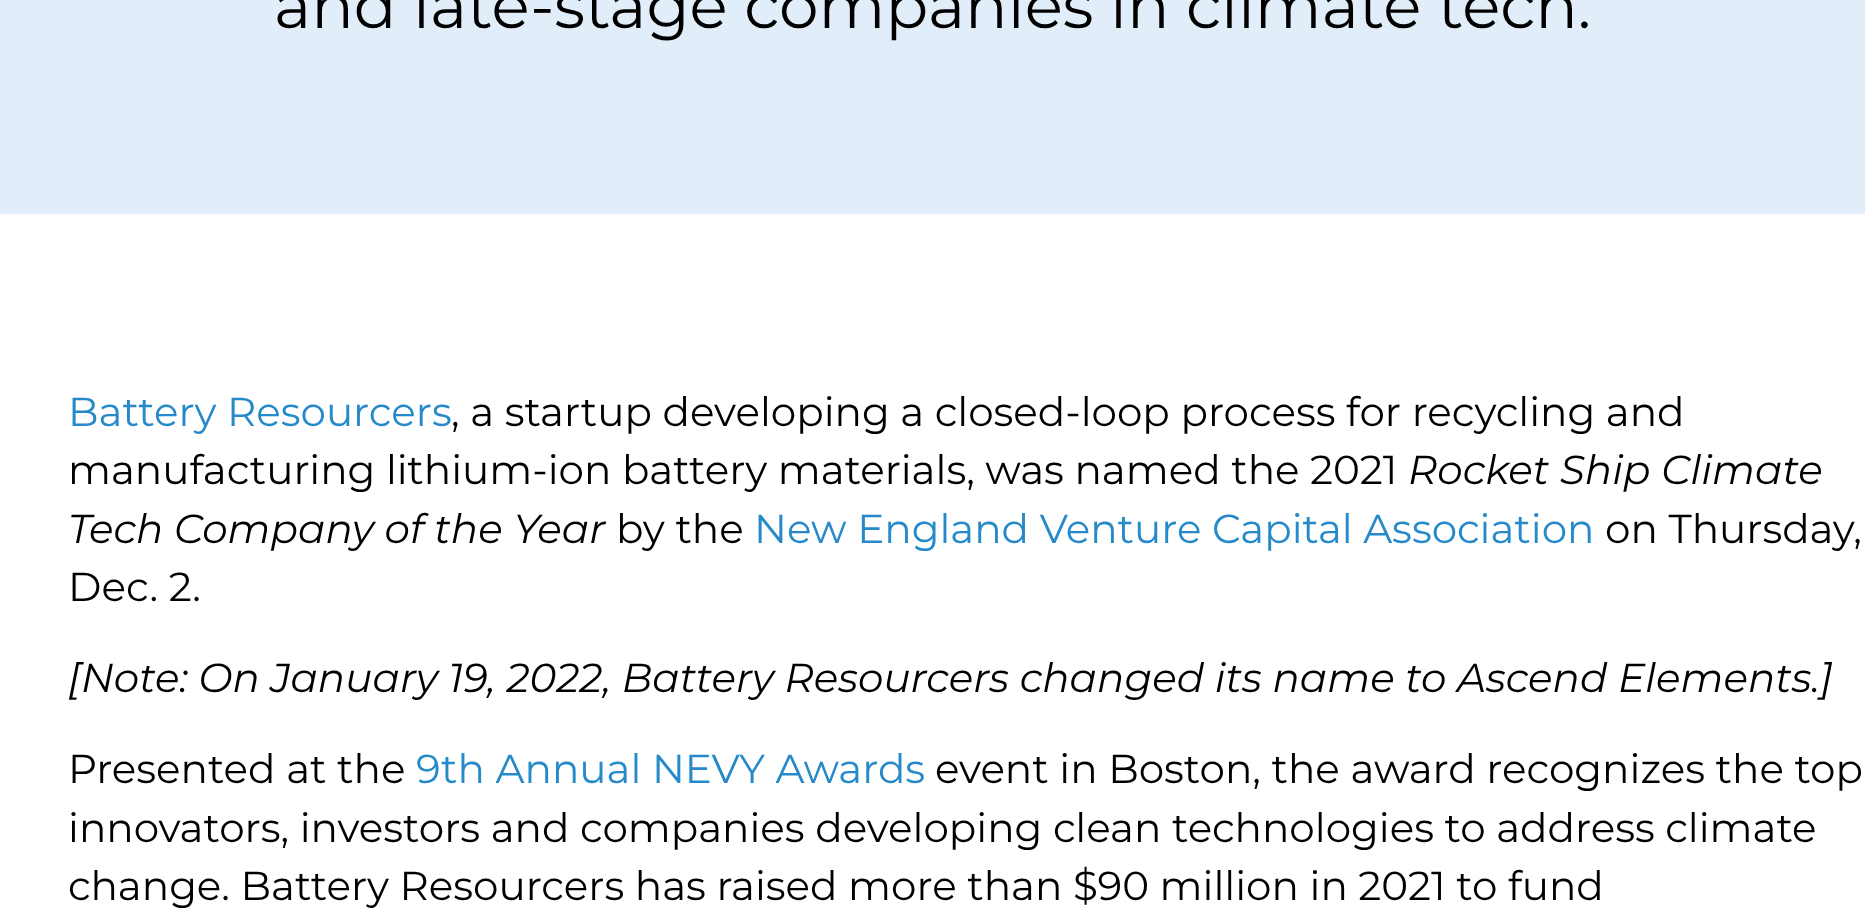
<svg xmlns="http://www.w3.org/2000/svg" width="1865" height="919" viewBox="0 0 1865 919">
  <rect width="100%" height="100%" fill="rgb(255,255,255)"/>
  <rect x="0" y="0" width="1865" height="214" fill="rgb(225,237,248)"/>
  <text x="274" y="28" font-family="Montserrat" font-size="63" fill="rgb(0,0,0)">and late-stage companies in climate tech.</text>
  <text x="68" y="426" font-family="Montserrat" font-size="40.5" fill="rgb(38,137,201)">Battery Resourcers</text>
  <g font-family="Montserrat" font-size="40.5" fill="rgb(0,0,0)">
    <text x="451" y="426">, a startup developing a closed-loop process for recycling and</text>
    <text x="68" y="484">manufacturing lithium-ion battery materials, was named the 2021</text>
  </g>
  <g font-family="Montserrat" font-size="40.5" font-style="italic" fill="rgb(0,0,0)">
    <text x="1408" y="484">Rocket Ship Climate</text>
    <text x="68" y="543">Tech Company of the Year</text>
  </g>
  <text x="616" y="543" font-family="Montserrat" font-size="40.5" fill="rgb(0,0,0)">by the</text>
  <text x="754" y="543" font-family="Montserrat" font-size="40.5" fill="rgb(38,137,201)">New England Venture Capital Association</text>
  <g font-family="Montserrat" font-size="40.5" fill="rgb(0,0,0)">
    <text x="1605" y="543">on Thursday,</text>
    <text x="68" y="601">Dec. 2.</text>
  </g>
  <text x="68" y="692" font-family="Montserrat" font-size="40.5" font-style="italic" fill="rgb(0,0,0)">[Note: On January 19, 2022, Battery Resourcers changed its name to Ascend Elements.]</text>
  <text x="68" y="783" font-family="Montserrat" font-size="40.5" fill="rgb(0,0,0)">Presented at the</text>
  <text x="416" y="783" font-family="Montserrat" font-size="40.5" fill="rgb(38,137,201)">9th Annual NEVY Awards</text>
  <g font-family="Montserrat" font-size="40.5" fill="rgb(0,0,0)">
    <text x="935" y="783">event in Boston, the award recognizes the top</text>
    <text>
      <tspan x="68" y="842">innovators, investors and companies developing clean technologies to address climate</tspan>
      <tspan x="68" y="900">change. Battery Resourcers has raised more than $90 million in 2021 to fund</tspan>
    </text>
  </g>
</svg>
